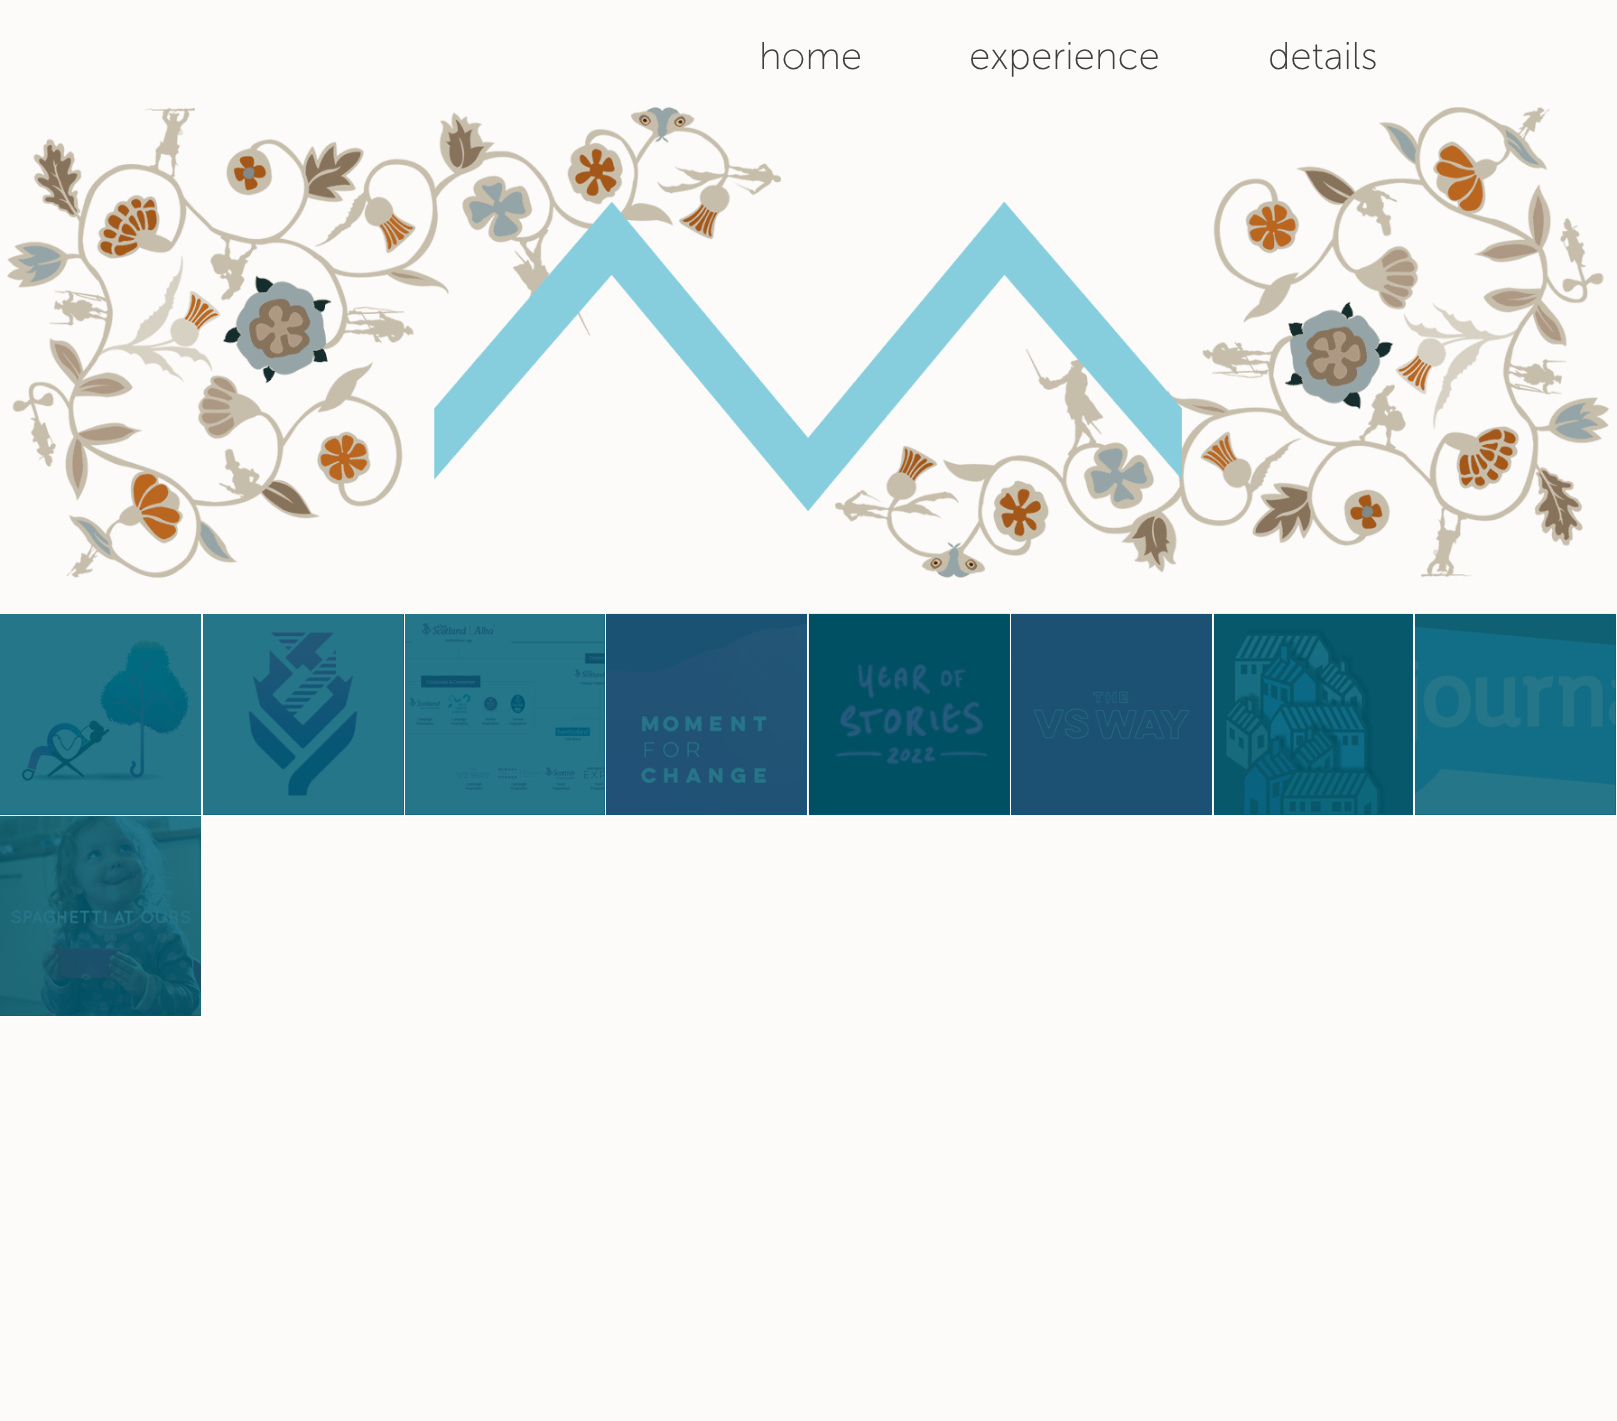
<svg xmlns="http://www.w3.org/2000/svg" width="1617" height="1421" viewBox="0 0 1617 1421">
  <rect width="100%" height="100%" fill="rgb(252,251,250)"/>
  <g font-family="'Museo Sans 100'" font-size="38.5" font-weight="300" fill="rgb(62,62,62)">
    <text x="759" y="69">home</text>
    <text x="969" y="69">experience</text>
    <text x="1268" y="69">details</text>
  </g>
  <image x="7" y="107" width="1602" height="471" href="pic1.png"/>
  <rect x="201" y="614" width="2" height="403" fill="rgb(255,255,255)"/>
  <rect x="0" y="815" width="203" height="1" fill="rgb(255,255,255)"/>
  <rect x="0" y="614" width="201" height="201" fill="rgb(0,94,117)"/>
  <image x="0" y="614" width="201" height="201" href="pic2.png"/>
  <rect x="404" y="614" width="1" height="202" fill="rgb(255,255,255)"/>
  <rect x="203" y="815" width="202" height="2" fill="rgb(255,255,255)"/>
  <rect x="203" y="614" width="201" height="201" fill="rgb(0,94,117)"/>
  <image x="203" y="614" width="201" height="201" href="pic3.png"/>
  <rect x="605" y="614" width="1" height="202" fill="rgb(255,255,255)"/>
  <rect x="405" y="815" width="201" height="2" fill="rgb(255,255,255)"/>
  <rect x="405" y="614" width="200" height="201" fill="rgb(0,94,117)"/>
  <image x="405" y="614" width="200" height="201" href="pic4.png"/>
  <rect x="807" y="614" width="2" height="202" fill="rgb(255,255,255)"/>
  <rect x="606" y="815" width="203" height="2" fill="rgb(255,255,255)"/>
  <rect x="606" y="614" width="201" height="201" fill="rgb(0,94,117)"/>
  <image x="606" y="613" width="201" height="202" href="pic5.png"/>
  <rect x="1010" y="614" width="1" height="202" fill="rgb(255,255,255)"/>
  <rect x="809" y="815" width="202" height="2" fill="rgb(255,255,255)"/>
  <rect x="809" y="614" width="201" height="201" fill="rgb(0,94,117)"/>
  <image x="808" y="613" width="202" height="202" href="pic6.png"/>
  <rect x="1212" y="614" width="2" height="202" fill="rgb(255,255,255)"/>
  <rect x="1011" y="815" width="203" height="2" fill="rgb(255,255,255)"/>
  <rect x="1011" y="614" width="201" height="201" fill="rgb(0,94,117)"/>
  <image x="1011" y="613" width="201" height="202" href="pic7.png"/>
  <rect x="1413" y="614" width="2" height="202" fill="rgb(255,255,255)"/>
  <rect x="1214" y="815" width="201" height="2" fill="rgb(255,255,255)"/>
  <rect x="1214" y="614" width="199" height="201" fill="rgb(0,94,117)"/>
  <image x="1213" y="613" width="200" height="202" href="pic8.png"/>
  <rect x="1616" y="614" width="1" height="202" fill="rgb(255,255,255)"/>
  <rect x="1415" y="815" width="202" height="2" fill="rgb(255,255,255)"/>
  <rect x="1415" y="614" width="201" height="201" fill="rgb(0,94,117)"/>
  <image x="1414" y="613" width="202" height="202" href="pic9.png"/>
  <rect x="0" y="1016" width="203" height="2" fill="rgb(255,255,255)"/>
  <rect x="0" y="816" width="201" height="200" fill="rgb(0,94,117)"/>
  <image x="0" y="816" width="201" height="200" href="pic10.png"/>
</svg>
